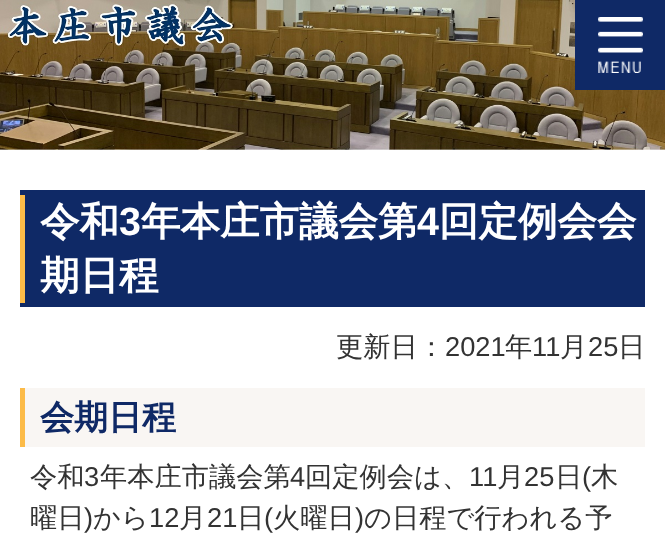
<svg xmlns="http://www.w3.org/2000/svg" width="665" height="547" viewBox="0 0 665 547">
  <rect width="100%" height="100%" fill="rgb(255,255,255)"/>
  <image x="0" y="0" width="665" height="150" href="pic1.png"/>
  <rect x="575" y="0" width="90" height="90" fill="rgb(15,41,102)"/>
  <image x="598" y="17" width="45" height="56" href="pic2.png"/>
  <rect x="20" y="190" width="625" height="117" fill="rgb(15,41,102)"/>
  <rect x="20" y="195" width="5" height="108" fill="rgb(252,187,72)"/>
  <text x="40" y="235" font-family="WenQuanYi Zen Hei" font-size="39.5" font-weight="bold" fill="rgb(255,255,255)">令和</text>
  <text x="119" y="235" font-family="Liberation Sans" font-size="39.5" font-weight="bold" fill="rgb(255,255,255)">3</text>
  <text x="141" y="235" font-family="WenQuanYi Zen Hei" font-size="39.5" font-weight="bold" fill="rgb(255,255,255)">年本庄市議会第</text>
  <text x="417" y="235" font-family="Liberation Sans" font-size="39.5" font-weight="bold" fill="rgb(255,255,255)">4</text>
  <g font-family="WenQuanYi Zen Hei" font-size="39.5" font-weight="bold" fill="rgb(255,255,255)">
    <text x="439" y="235">回定例会会</text>
    <text x="40" y="289">期日程</text>
  </g>
  <text x="336" y="356" font-family="WenQuanYi Zen Hei" font-size="27.25" font-weight="500" fill="rgb(51,51,51)">更新日：</text>
  <text x="445" y="356" font-family="Liberation Sans" font-size="27.25" fill="rgb(51,51,51)">2021</text>
  <text x="505" y="356" font-family="WenQuanYi Zen Hei" font-size="27.25" font-weight="500" fill="rgb(51,51,51)">年</text>
  <text x="532" y="356" font-family="Liberation Sans" font-size="27.25" fill="rgb(51,51,51)">11</text>
  <text x="560" y="356" font-family="WenQuanYi Zen Hei" font-size="27.25" font-weight="500" fill="rgb(51,51,51)">月</text>
  <text x="588" y="356" font-family="Liberation Sans" font-size="27.25" fill="rgb(51,51,51)">25</text>
  <text x="618" y="356" font-family="WenQuanYi Zen Hei" font-size="27.25" font-weight="500" fill="rgb(51,51,51)">日</text>
  <rect x="25" y="388" width="620" height="59" fill="rgb(249,246,243)"/>
  <rect x="20" y="388" width="5" height="59" fill="rgb(252,187,72)"/>
  <text x="40" y="429" font-family="WenQuanYi Zen Hei" font-size="34" font-weight="bold" fill="rgb(15,41,102)">会期日程</text>
  <text x="30" y="486" font-family="WenQuanYi Zen Hei" font-size="27.25" font-weight="500" fill="rgb(51,51,51)">令和</text>
  <text x="84" y="486" font-family="Liberation Sans" font-size="27.25" fill="rgb(51,51,51)">3</text>
  <text x="100" y="486" font-family="WenQuanYi Zen Hei" font-size="27.25" font-weight="500" fill="rgb(51,51,51)">年本庄市議会第</text>
  <text x="290" y="486" font-family="Liberation Sans" font-size="27.25" fill="rgb(51,51,51)">4</text>
  <text x="305" y="486" font-family="WenQuanYi Zen Hei" font-size="27.25" font-weight="500" fill="rgb(51,51,51)">回定例会は、</text>
  <text x="469" y="486" font-family="Liberation Sans" font-size="27.25" fill="rgb(51,51,51)">11</text>
  <text x="497" y="486" font-family="WenQuanYi Zen Hei" font-size="27.25" font-weight="500" fill="rgb(51,51,51)">月</text>
  <text x="524" y="486" font-family="Liberation Sans" font-size="27.25" fill="rgb(51,51,51)">25</text>
  <text x="555" y="486" font-family="WenQuanYi Zen Hei" font-size="27.25" font-weight="500" fill="rgb(51,51,51)">日</text>
  <text x="582" y="486" font-family="Liberation Sans" font-size="27.25" fill="rgb(51,51,51)">(</text>
  <g font-family="WenQuanYi Zen Hei" font-size="27.25" font-weight="500" fill="rgb(51,51,51)">
    <text x="591" y="486">木</text>
    <text x="30" y="527">曜日</text>
  </g>
  <text x="84" y="527" font-family="Liberation Sans" font-size="27.25" fill="rgb(51,51,51)">)</text>
  <text x="93" y="527" font-family="WenQuanYi Zen Hei" font-size="27.25" font-weight="500" fill="rgb(51,51,51)">から</text>
  <text x="149" y="527" font-family="Liberation Sans" font-size="27.25" fill="rgb(51,51,51)">12</text>
  <text x="179" y="527" font-family="WenQuanYi Zen Hei" font-size="27.25" font-weight="500" fill="rgb(51,51,51)">月</text>
  <text x="207" y="527" font-family="Liberation Sans" font-size="27.25" fill="rgb(51,51,51)">21</text>
  <text x="237" y="527" font-family="WenQuanYi Zen Hei" font-size="27.25" font-weight="500" fill="rgb(51,51,51)">日</text>
  <text x="264" y="527" font-family="Liberation Sans" font-size="27.25" fill="rgb(51,51,51)">(</text>
  <text x="273" y="527" font-family="WenQuanYi Zen Hei" font-size="27.25" font-weight="500" fill="rgb(51,51,51)">火曜日</text>
  <text x="355" y="527" font-family="Liberation Sans" font-size="27.25" fill="rgb(51,51,51)">)</text>
  <text x="364" y="527" font-family="WenQuanYi Zen Hei" font-size="27.25" font-weight="500" fill="rgb(51,51,51)">の日程で行われる予</text>
</svg>
